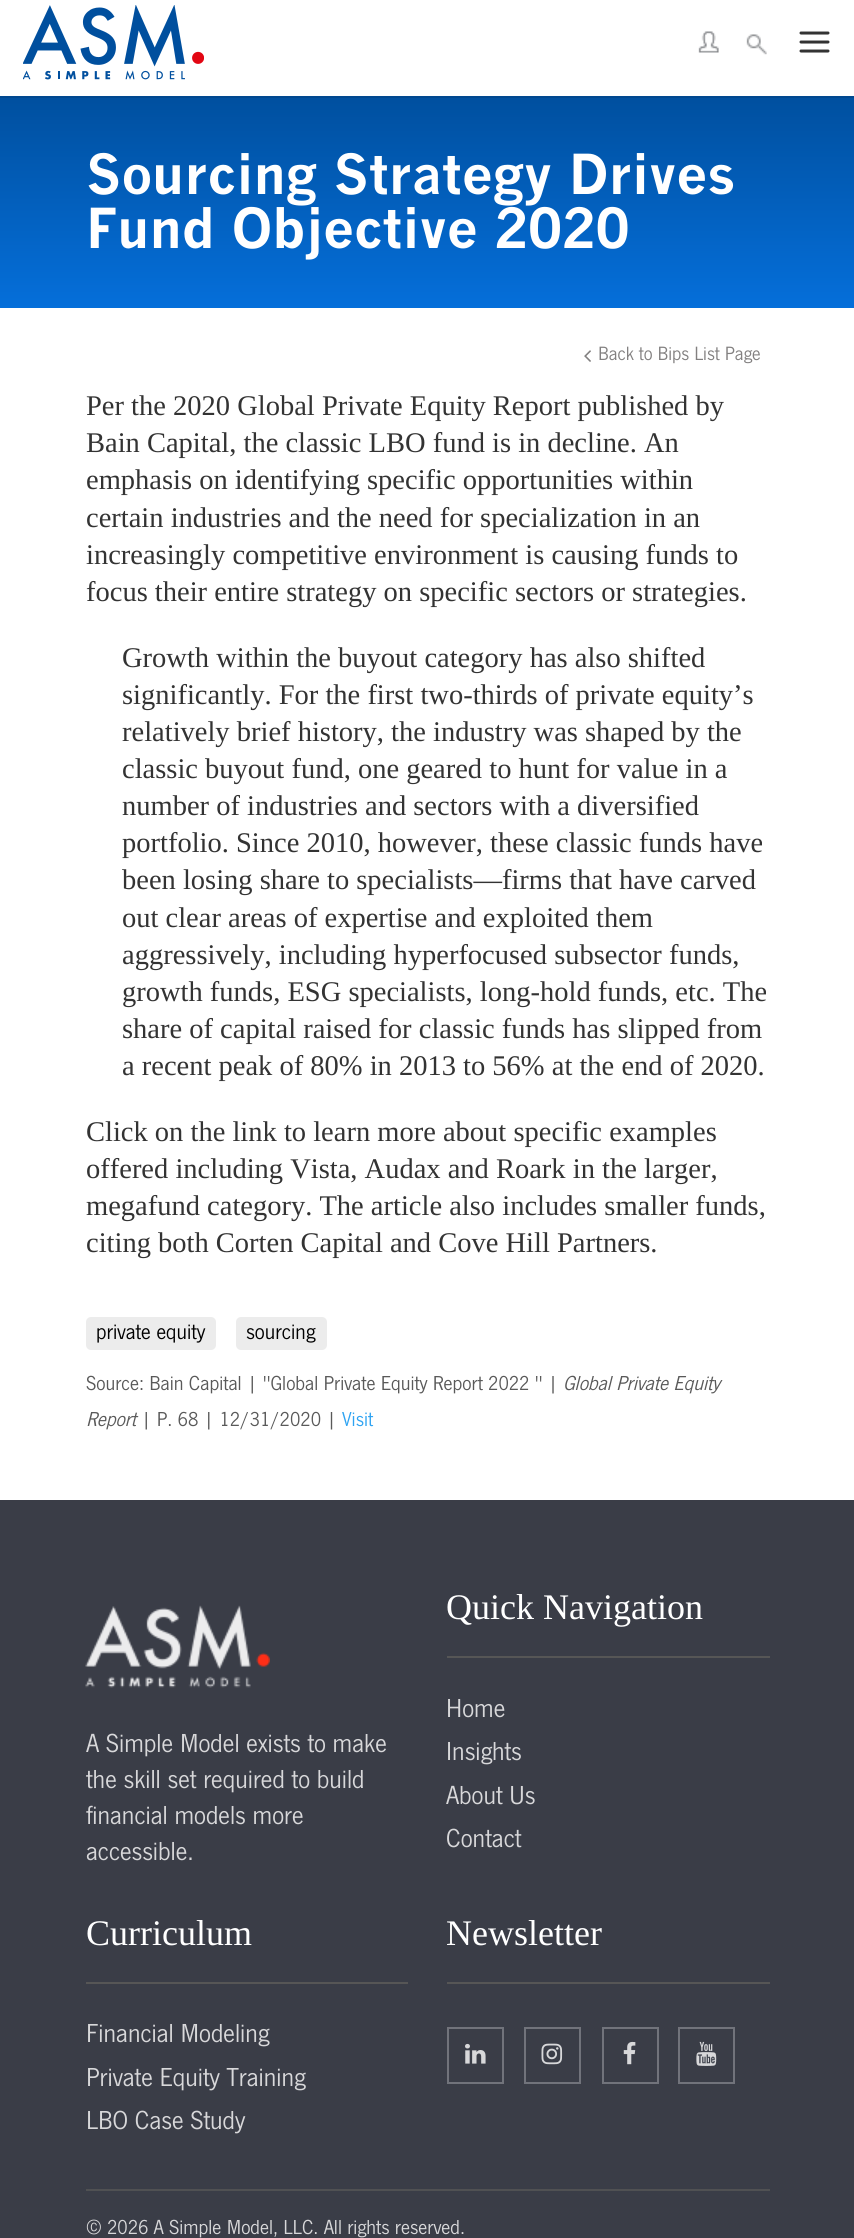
#include <cairo.h>
#include <math.h>
#include <stddef.h>

static cairo_t *c;
static void C(unsigned color){cairo_set_source_rgb(c, (color >> 16) / 255.0, (color >> 8 & 255) / 255.0, (color & 255) / 255.0);}
static void F(const char *family, double size, int italic, int bold){cairo_select_font_face(c, family, italic ? CAIRO_FONT_SLANT_ITALIC : CAIRO_FONT_SLANT_NORMAL,bold ? CAIRO_FONT_WEIGHT_BOLD : CAIRO_FONT_WEIGHT_NORMAL);cairo_set_font_size(c, size);}
static void T(double x, double y, const char *s){cairo_move_to(c, x, y);cairo_show_text(c, s);}
static void R(double x, double y, double w, double h){cairo_rectangle(c, x, y, w, h);cairo_fill(c);}
static void Q(double x, double y, double w, double h, double r){cairo_new_sub_path(c);cairo_arc(c, x + w - r, y + h - r, r, 0, M_PI / 2);cairo_arc(c, x + r, y + h - r, r, M_PI / 2, M_PI);cairo_arc(c, x + r, y + r, r, M_PI, 1.5 * M_PI);cairo_arc(c, x + w - r, y + r, r, 1.5 * M_PI, 2 * M_PI);cairo_close_path(c);}
static void I(const char *path, double x, double y, double w, double h){cairo_surface_t *image = cairo_image_surface_create_from_png(path);cairo_save(c);cairo_set_source_surface(c, image, x, y);cairo_rectangle(c, x, y, w, h);cairo_fill(c);cairo_restore(c);cairo_surface_destroy(image);}
int main(void) {
cairo_surface_t *surface = cairo_image_surface_create(CAIRO_FORMAT_RGB24, 854, 2238);
c = cairo_create(surface);
cairo_font_options_t *options = cairo_font_options_create();
cairo_font_options_set_hint_metrics(options, CAIRO_HINT_METRICS_OFF);
cairo_font_options_set_hint_style(options, CAIRO_HINT_STYLE_NONE);
cairo_set_font_options(c, options);
cairo_set_miter_limit(c, 4);
cairo_pattern_t *gradient;
C(0xffffff);
cairo_paint(c);
C(0x00488f);
R(0,96,854,2);
I("1.png",23,5,181,75);
I("2.png",698,31,21,22);
I("3.png",746,34,21,21);
I("4.png",799,31,31,22);
gradient = cairo_pattern_create_linear(428,94,428,308);
cairo_pattern_add_color_stop_rgba(gradient,0,0,0.31,0.62,1);
cairo_pattern_add_color_stop_rgba(gradient,1,0.02,0.435,0.855,1);
cairo_set_source(c,gradient);
cairo_pattern_destroy(gradient);
R(0,98,854,210);
F("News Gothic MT",54,0,1);
C(0xffffff);
T(86,194,"Sourcing Strategy Drives");
T(86,248,"Fund Objective 2020");
I("5.png",584,350,7,12);
F("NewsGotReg",20,0,0);
C(0x828080);
T(598,360,"Back to Bips List Page");
F("Liberation Serif",28.5,0,0);
C(0x333333);
T(86,415,"Per the 2020 Global Private Equity Report published by");
T(86,452,"Bain Capital, the classic LBO fund is in decline. An");
T(86,489,"emphasis on identifying specific opportunities within");
T(86,527,"certain industries and the need for specialization in an");
T(86,564,"increasingly competitive environment is causing funds to");
T(86,601,"focus their entire strategy on specific sectors or strategies.");
T(122,667,"Growth within the buyout category has also shifted");
T(122,704,"significantly. For the first two-thirds of private equity’s");
T(122,741,"relatively brief history, the industry was shaped by the");
T(122,778,"classic buyout fund, one geared to hunt for value in a");
T(122,815,"number of industries and sectors with a diversified");
T(122,852,"portfolio. Since 2010, however, these classic funds have");
T(122,889,"been losing share to specialists—firms that have carved");
T(122,927,"out clear areas of expertise and exploited them");
T(122,964,"aggressively, including hyperfocused subsector funds,");
T(122,1001,"growth funds, ESG specialists, long-hold funds, etc. The");
T(122,1038,"share of capital raised for classic funds has slipped from");
T(122,1075,"a recent peak of 80% in 2013 to 56% at the end of 2020.");
T(86,1141,"Click on the link to learn more about specific examples");
T(86,1178,"offered including Vista, Audax and Roark in the larger,");
T(86,1215,"megafund category. The article also includes smaller funds,");
T(86,1252,"citing both Corten Capital and Cove Hill Partners.");
C(0xececec);
Q(86,1317,130,33,5);
cairo_fill(c);
F("NewsGotReg",22.5,0,0);
C(0x000000);
T(96,1339,"private equity");
C(0xececec);
Q(236,1317,91,33,5);
cairo_fill(c);
C(0x000000);
T(246,1339,"sourcing");
F("NewsGotReg",21,0,0);
C(0x595959);
T(86,1390,"Source: Bain Capital | \"Global Private Equity Report 2022 \" |");
F("NewsGotReg",21,1,0);
T(563,1390,"Global Private Equity");
T(86,1426,"Report");
F("NewsGotReg",21,0,0);
T(141,1426,"| P. 68 | 12/31/2020 |");
C(0x2ea3f2);
T(342,1426,"Visit");
C(0x3a3d47);
R(0,1500,854,738);
I("6.png",85,1605,185,83);
F("NewsGotReg",27,0,0);
C(0xd8d8da);
T(86,1752,"A Simple Model exists to make");
T(86,1788,"the skill set required to build");
T(86,1824,"financial models more");
T(86,1860,"accessible.");
C(0x565656);
R(447,1656,323,2);
F("Liberation Serif",36,0,0);
C(0xffffff);
T(446,1619,"Quick Navigation");
F("NewsGotReg",27,0,0);
C(0xd8d8da);
T(446,1717,"Home");
T(446,1760,"Insights");
T(446,1804,"About Us");
T(446,1847,"Contact");
C(0x565656);
R(86,1982,322,2);
F("Liberation Serif",36,0,0);
C(0xffffff);
T(86,1945,"Curriculum");
F("NewsGotReg",27,0,0);
C(0xd8d8da);
T(86,2042,"Financial Modeling");
T(86,2086,"Private Equity Training");
T(86,2129,"LBO Case Study");
C(0x565656);
R(447,1982,323,2);
F("Liberation Serif",36,0,0);
C(0xffffff);
T(446,1945,"Newsletter");
cairo_rectangle(c,448,2028,55,55);
C(0x71737b);
cairo_stroke(c);
I("7.png",465,2043,21,21);
cairo_rectangle(c,525,2028,55,55);
cairo_stroke(c);
I("8.png",541,2043,22,22);
cairo_rectangle(c,603,2028,55,55);
cairo_stroke(c);
I("9.png",623,2041,13,24);
cairo_rectangle(c,679,2028,55,55);
cairo_stroke(c);
I("10.png",696,2041,21,25);
C(0x505153);
R(86,2189,684,2);
F("NewsGotReg",21,0,0);
C(0xd8d8da);
T(86,2234,"© 2026 A Simple Model, LLC. All rights reserved.");
cairo_surface_write_to_png(surface, "o.png");
cairo_font_options_destroy(options);
cairo_destroy(c);
cairo_surface_destroy(surface);
return 0;
}
